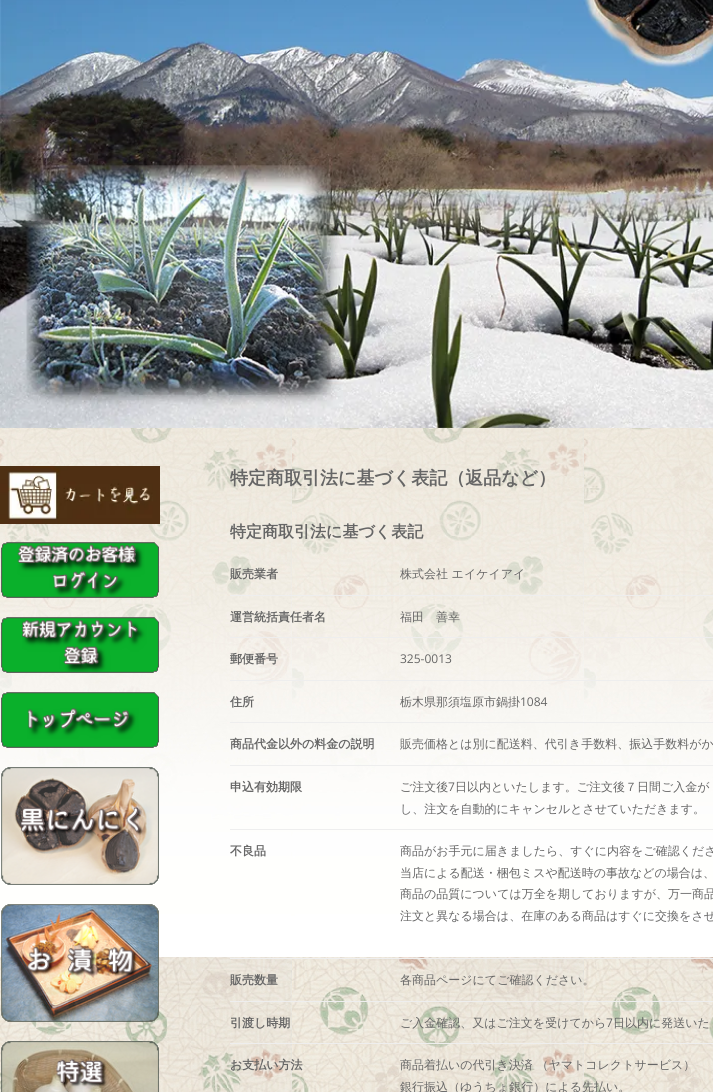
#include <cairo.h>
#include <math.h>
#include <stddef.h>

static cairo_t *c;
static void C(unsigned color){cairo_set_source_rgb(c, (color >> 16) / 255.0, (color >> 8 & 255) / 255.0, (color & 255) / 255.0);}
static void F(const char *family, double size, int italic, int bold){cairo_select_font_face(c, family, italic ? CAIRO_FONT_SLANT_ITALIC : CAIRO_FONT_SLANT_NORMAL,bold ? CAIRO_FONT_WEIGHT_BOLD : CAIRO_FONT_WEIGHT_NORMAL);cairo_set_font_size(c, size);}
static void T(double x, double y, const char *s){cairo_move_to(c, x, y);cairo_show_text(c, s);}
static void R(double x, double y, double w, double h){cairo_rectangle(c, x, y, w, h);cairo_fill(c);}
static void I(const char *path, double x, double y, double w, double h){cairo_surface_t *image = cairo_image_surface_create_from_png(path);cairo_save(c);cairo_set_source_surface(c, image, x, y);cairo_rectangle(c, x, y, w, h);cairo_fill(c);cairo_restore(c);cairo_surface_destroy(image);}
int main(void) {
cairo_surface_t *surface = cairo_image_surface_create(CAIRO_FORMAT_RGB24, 713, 1092);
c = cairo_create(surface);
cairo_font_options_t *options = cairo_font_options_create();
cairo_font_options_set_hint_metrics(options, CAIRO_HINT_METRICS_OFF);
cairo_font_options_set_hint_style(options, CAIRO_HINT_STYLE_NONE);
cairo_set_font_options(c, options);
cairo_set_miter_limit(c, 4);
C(0xffffff);
cairo_paint(c);
I("1.png",0,428,713,664);
I("2.png",0,0,530,428);
I("3.png",530,0,183,428);
I("4.png",0,466,160,58);
I("5.png",1,542,158,56);
I("6.png",1,617,158,56);
I("7.png",1,692,158,56);
I("8.png",1,767,158,118);
I("9.png",1,904,158,118);
I("10.png",1,1041,158,51);
F("WenQuanYi Zen Hei",18,0,1);
C(0x666666);
T(230,484,"特定商取引法に基づく表記（返品など）");
F("WenQuanYi Zen Hei",16,0,1);
T(230,537,"特定商取引法に基づく表記");
C(0xeeeeee);
R(230,595,483,1);
F("WenQuanYi Zen Hei",12,0,1);
C(0x666666);
T(230,578,"販売業者");
F("WenQuanYi Zen Hei Medium",12,0,0);
T(400,578,"株式会社 エイケイアイ");
C(0xeeeeee);
R(230,637,483,1);
F("WenQuanYi Zen Hei",12,0,1);
C(0x666666);
T(230,621,"運営統括責任者名");
F("WenQuanYi Zen Hei Medium",12,0,0);
T(400,621,"福田　善幸");
C(0xeeeeee);
R(230,680,483,1);
F("WenQuanYi Zen Hei",12,0,1);
C(0x666666);
T(230,663,"郵便番号");
F("Open Sans",12,0,0);
T(400,663,"325-0013");
C(0xeeeeee);
R(230,722,483,1);
F("WenQuanYi Zen Hei",12,0,1);
C(0x666666);
T(230,706,"住所");
F("WenQuanYi Zen Hei Medium",12,0,0);
T(400,706,"栃木県那須塩原市鍋掛");
F("Open Sans",12,0,0);
T(520,706,"1084");
C(0xeeeeee);
R(230,765,483,1);
F("WenQuanYi Zen Hei",12,0,1);
C(0x666666);
T(230,748,"商品代金以外の料金の説明");
F("WenQuanYi Zen Hei Medium",12,0,0);
T(400,748,"販売価格とは別に配送料、代引き手数料、振込手数料がか");
C(0xeeeeee);
R(230,829,483,1);
F("WenQuanYi Zen Hei",12,0,1);
C(0x666666);
T(230,791,"申込有効期限");
F("WenQuanYi Zen Hei Medium",12,0,0);
T(400,791,"ご注文後");
F("Open Sans",12,0,0);
T(448,791,"7");
F("WenQuanYi Zen Hei Medium",12,0,0);
T(455,791,"日以内といたします。ご注文後７日間ご入金が");
T(400,813,"し、注文を自動的にキャンセルとさせていただきます。");
C(0xeeeeee);
R(230,958,483,1);
F("WenQuanYi Zen Hei",12,0,1);
C(0x666666);
T(230,855,"不良品");
F("WenQuanYi Zen Hei Medium",12,0,0);
T(400,855,"商品がお手元に届きましたら、すぐに内容をご確認くださ");
T(400,877,"当店による配送・梱包ミスや配送時の事故などの場合は、");
T(400,898,"商品の品質については万全を期しておりますが、万一商品");
T(400,920,"注文と異なる場合は、在庫のある商品はすぐに交換をさせ");
C(0xeeeeee);
R(230,1001,483,1);
F("WenQuanYi Zen Hei",12,0,1);
C(0x666666);
T(230,984,"販売数量");
F("WenQuanYi Zen Hei Medium",12,0,0);
T(400,984,"各商品ページにてご確認ください。");
C(0xeeeeee);
R(230,1043,483,1);
F("WenQuanYi Zen Hei",12,0,1);
C(0x666666);
T(230,1027,"引渡し時期");
F("WenQuanYi Zen Hei Medium",12,0,0);
T(400,1027,"ご入金確認、又はご注文を受けてから");
F("Open Sans",12,0,0);
T(606,1027,"7");
F("WenQuanYi Zen Hei Medium",12,0,0);
T(613,1027,"日以内に発送いた");
F("WenQuanYi Zen Hei",12,0,1);
T(230,1069,"お支払い方法");
F("WenQuanYi Zen Hei Medium",12,0,0);
T(400,1069,"商品着払いの代引き決済 （ヤマトコレクトサービス）");
T(400,1091,"銀行振込（ゆうちょ銀行）による先払い。");
cairo_surface_write_to_png(surface, "o.png");
cairo_font_options_destroy(options);
cairo_destroy(c);
cairo_surface_destroy(surface);
return 0;
}
